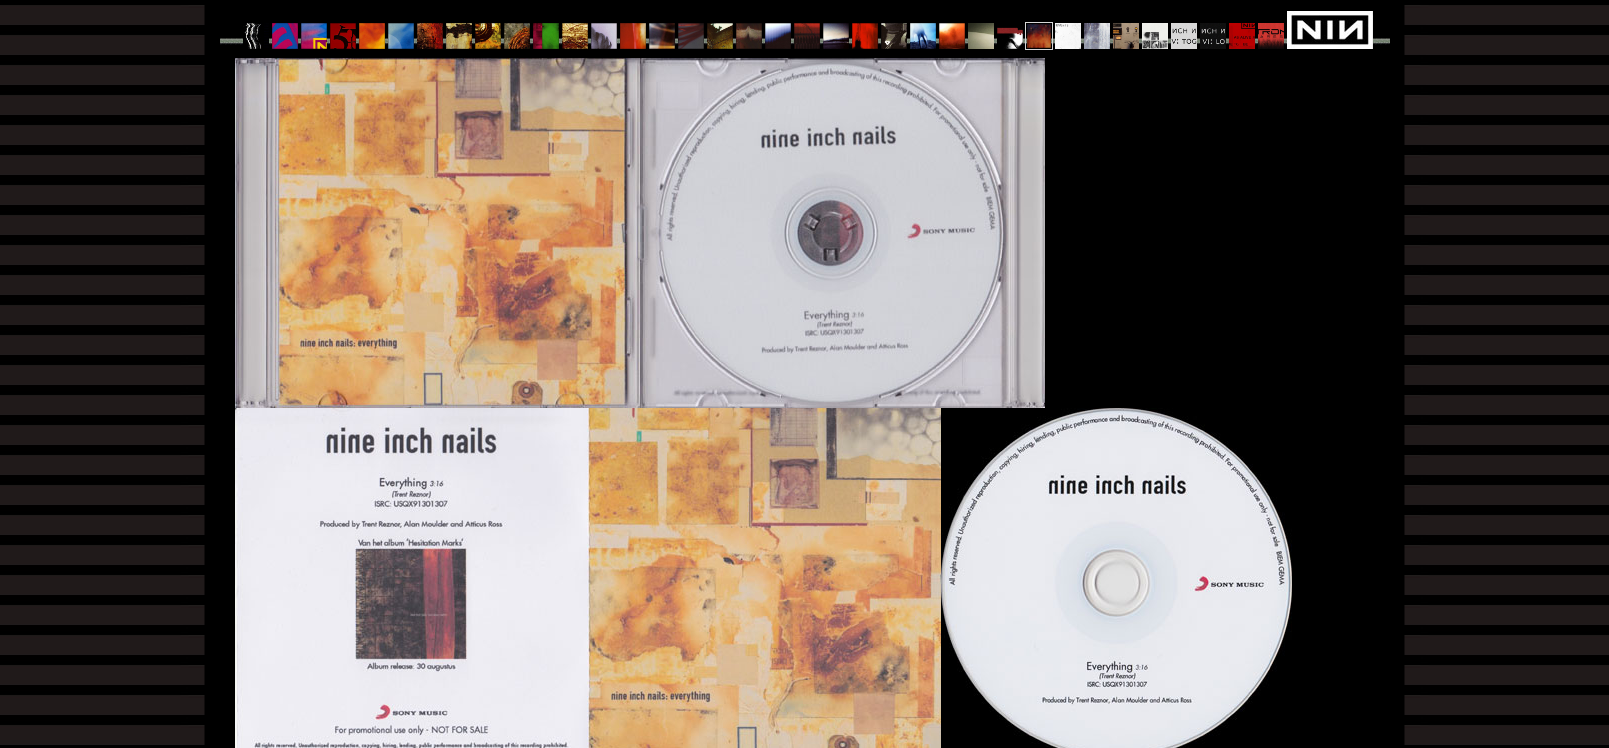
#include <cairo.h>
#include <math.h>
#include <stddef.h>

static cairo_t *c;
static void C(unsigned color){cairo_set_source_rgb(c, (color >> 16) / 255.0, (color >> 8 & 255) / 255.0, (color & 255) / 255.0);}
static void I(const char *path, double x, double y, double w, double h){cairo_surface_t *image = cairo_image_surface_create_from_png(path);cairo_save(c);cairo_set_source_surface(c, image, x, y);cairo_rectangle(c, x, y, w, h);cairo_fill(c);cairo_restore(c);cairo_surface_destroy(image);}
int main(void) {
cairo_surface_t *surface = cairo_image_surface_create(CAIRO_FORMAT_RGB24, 1609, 748);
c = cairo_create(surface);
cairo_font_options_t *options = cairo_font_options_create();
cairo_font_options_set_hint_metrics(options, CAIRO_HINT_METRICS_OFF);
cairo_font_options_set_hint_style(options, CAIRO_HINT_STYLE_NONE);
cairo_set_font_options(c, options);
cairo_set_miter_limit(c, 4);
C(0x000000);
cairo_paint(c);
I("1.png",0,5,1609,740);
I("2.png",220,38,1170,7);
I("3.png",243,23,26,26);
I("4.png",272,23,26,26);
I("5.png",301,23,26,26);
I("6.png",330,23,26,26);
I("7.png",359,23,26,26);
I("8.png",388,23,26,26);
I("9.png",417,23,26,26);
I("10.png",446,23,26,26);
I("11.png",475,23,26,26);
I("12.png",504,23,26,26);
I("13.png",533,23,26,26);
I("14.png",562,23,26,26);
I("15.png",591,23,26,26);
I("16.png",620,23,26,26);
I("17.png",649,23,26,26);
I("18.png",678,23,26,26);
I("19.png",707,23,26,26);
I("20.png",736,23,26,26);
I("21.png",765,23,26,26);
I("22.png",794,23,26,26);
I("23.png",823,23,26,26);
I("24.png",852,23,26,26);
I("25.png",881,23,26,26);
I("26.png",910,23,26,26);
I("27.png",939,23,26,26);
I("28.png",968,23,26,26);
cairo_rectangle(c,1025.5,22.5,27,27);
C(0xd6d6d6);
cairo_set_line_width(c,1);
cairo_stroke(c);
I("29.png",1055,23,26,26);
I("30.png",1084,23,26,26);
I("31.png",1113,23,26,26);
I("32.png",1142,23,26,26);
I("33.png",1171,23,26,26);
I("34.png",1200,23,26,26);
I("35.png",1229,23,26,26);
I("36.png",1258,23,26,26);
I("37.png",1287,11,86,38);
I("38.png",997,27,26,22);
I("39.png",1027,24,24,24);
I("40.png",235,58,405,350);
I("41.png",640,58,405,350);
I("42.png",235,408,706,340);
I("43.png",941,408,351,340);
cairo_surface_write_to_png(surface, "o.png");
cairo_font_options_destroy(options);
cairo_destroy(c);
cairo_surface_destroy(surface);
return 0;
}
